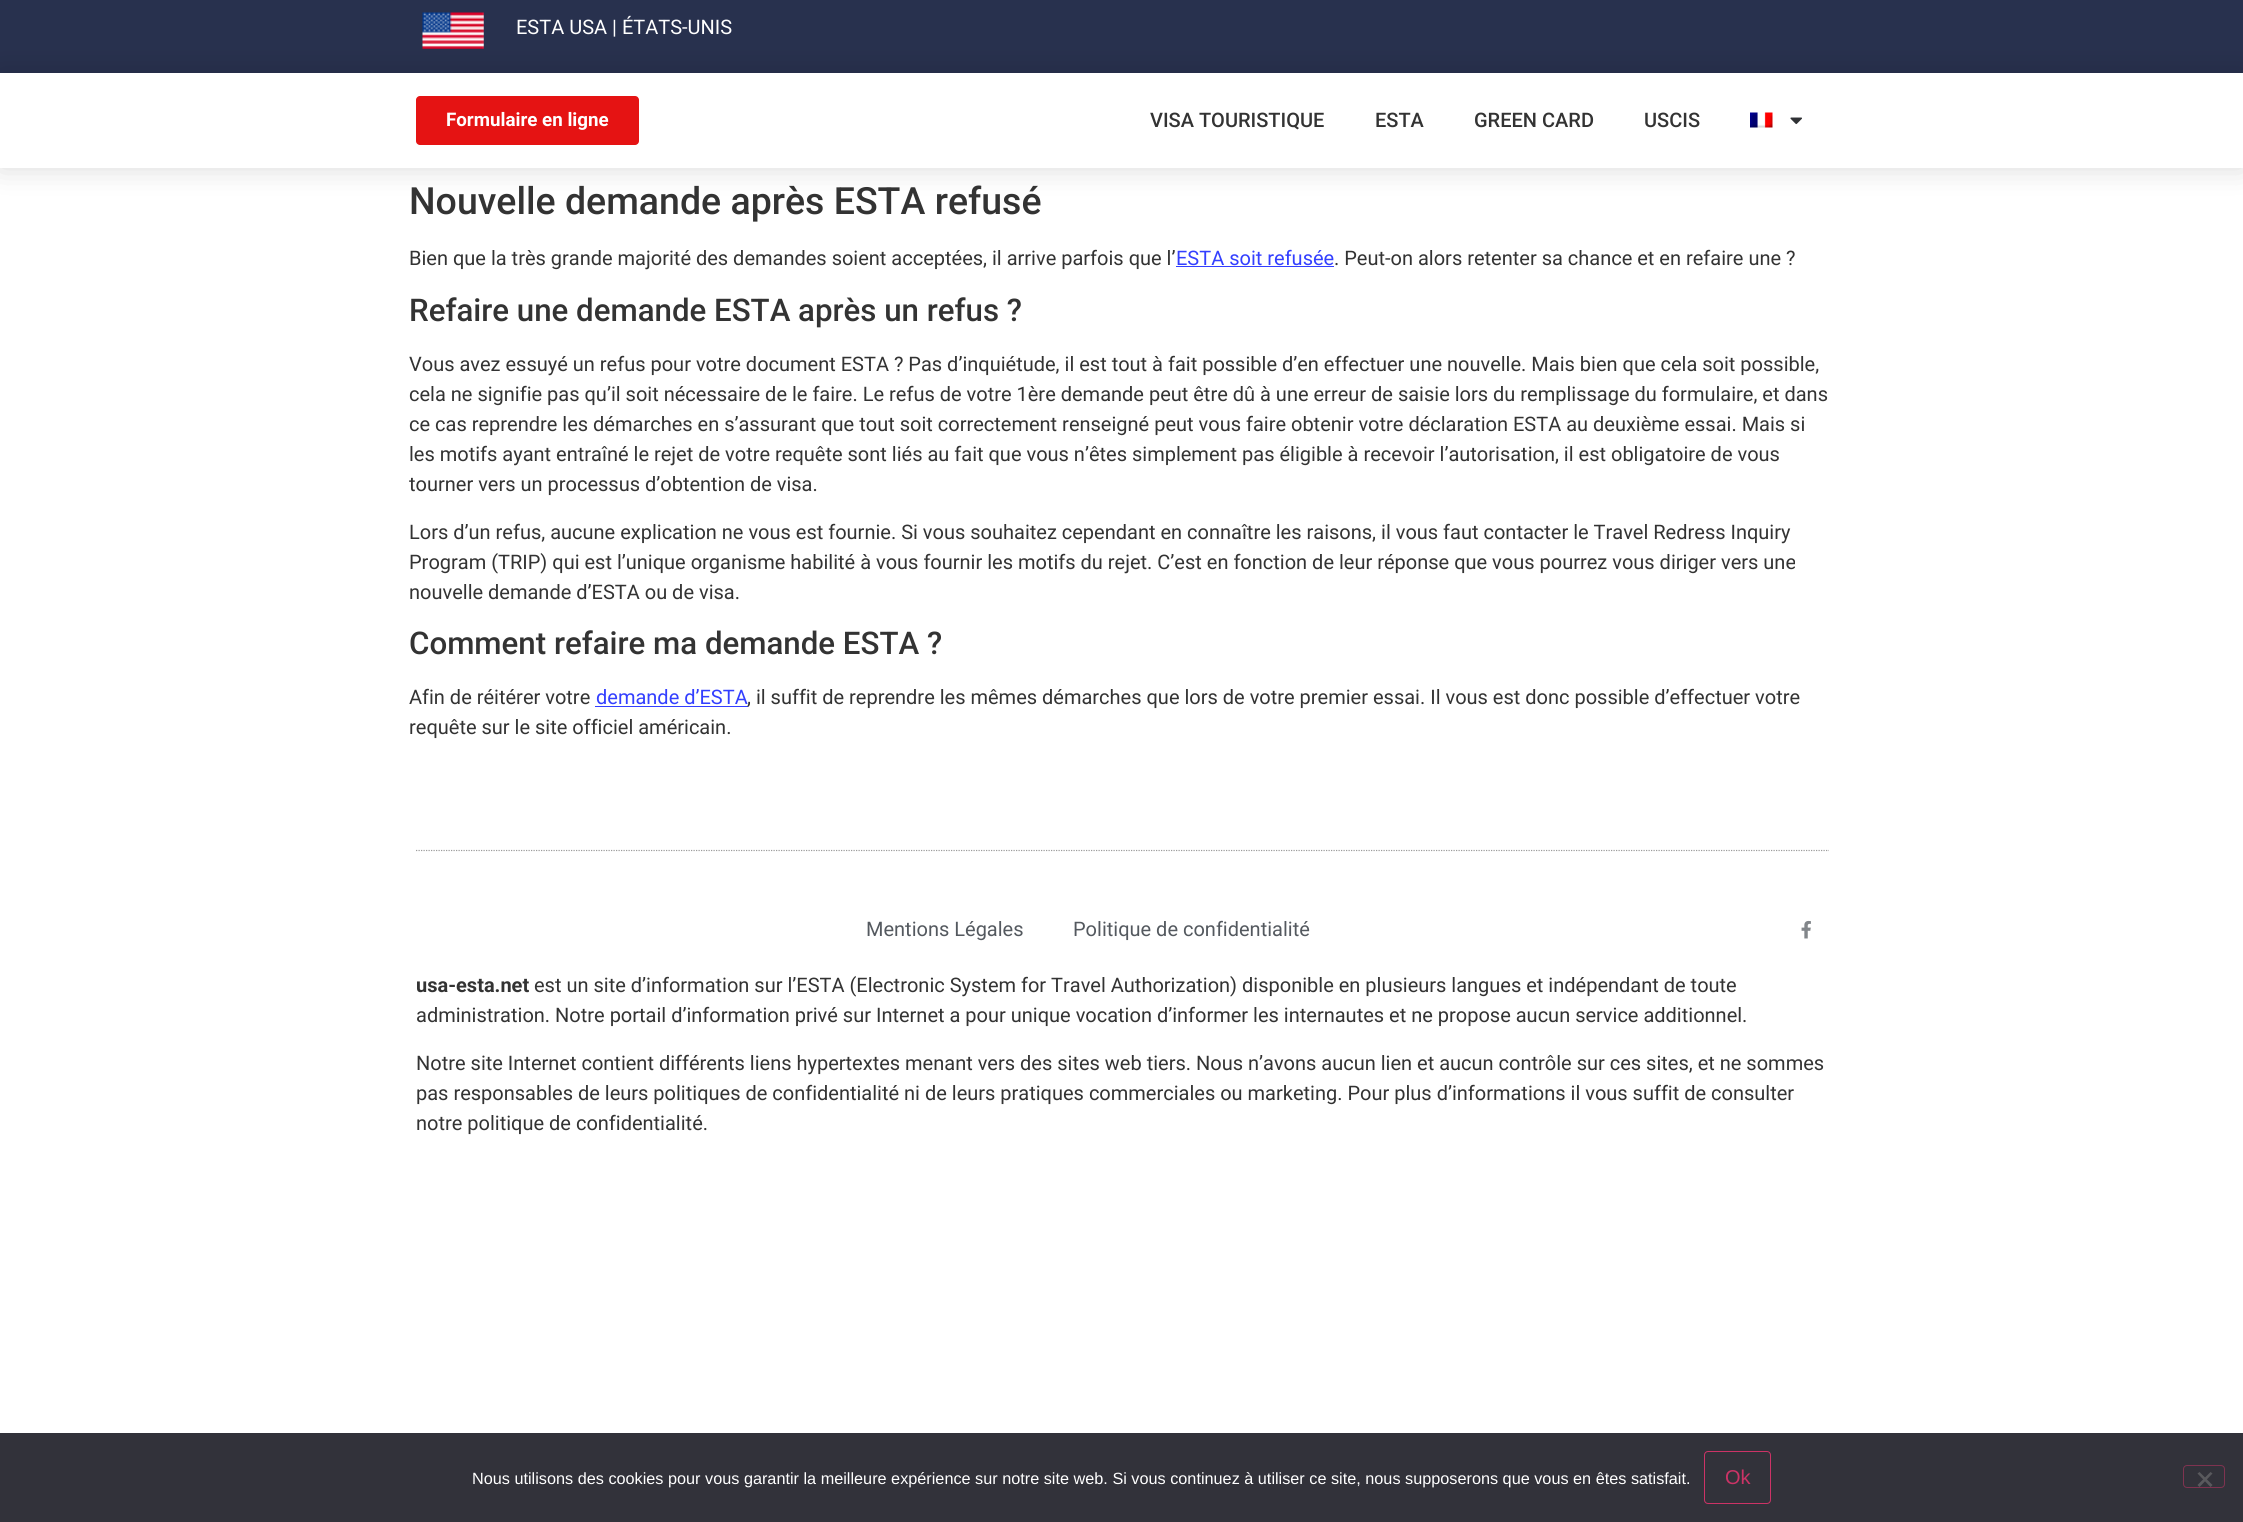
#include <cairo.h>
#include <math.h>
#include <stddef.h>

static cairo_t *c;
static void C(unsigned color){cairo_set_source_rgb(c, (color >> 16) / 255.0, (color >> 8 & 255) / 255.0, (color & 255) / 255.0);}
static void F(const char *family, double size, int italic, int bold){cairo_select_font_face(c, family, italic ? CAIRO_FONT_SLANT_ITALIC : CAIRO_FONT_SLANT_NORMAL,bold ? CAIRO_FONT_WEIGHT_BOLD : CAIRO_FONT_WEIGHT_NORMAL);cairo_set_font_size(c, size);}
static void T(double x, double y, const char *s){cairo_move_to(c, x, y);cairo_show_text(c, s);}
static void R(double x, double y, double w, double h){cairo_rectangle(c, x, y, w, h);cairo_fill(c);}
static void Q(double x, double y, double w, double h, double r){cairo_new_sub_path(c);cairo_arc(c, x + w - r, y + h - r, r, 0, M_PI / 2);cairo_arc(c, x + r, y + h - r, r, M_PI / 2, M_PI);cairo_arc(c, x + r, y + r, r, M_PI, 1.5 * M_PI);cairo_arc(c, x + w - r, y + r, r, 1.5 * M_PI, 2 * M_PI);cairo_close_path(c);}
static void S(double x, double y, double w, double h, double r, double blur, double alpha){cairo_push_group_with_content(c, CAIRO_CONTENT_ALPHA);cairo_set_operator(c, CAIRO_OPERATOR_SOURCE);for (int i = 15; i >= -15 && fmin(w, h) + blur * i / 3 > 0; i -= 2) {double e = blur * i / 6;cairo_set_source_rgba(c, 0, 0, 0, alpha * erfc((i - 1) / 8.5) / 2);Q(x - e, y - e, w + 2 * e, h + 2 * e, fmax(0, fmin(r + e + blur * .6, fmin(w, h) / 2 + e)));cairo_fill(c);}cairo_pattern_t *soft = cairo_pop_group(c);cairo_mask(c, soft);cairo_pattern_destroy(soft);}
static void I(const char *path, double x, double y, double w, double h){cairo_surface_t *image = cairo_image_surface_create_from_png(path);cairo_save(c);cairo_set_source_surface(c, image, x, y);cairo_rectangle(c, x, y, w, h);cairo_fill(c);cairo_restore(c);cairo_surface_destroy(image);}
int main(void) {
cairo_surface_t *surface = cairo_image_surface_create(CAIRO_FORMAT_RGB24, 2243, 1522);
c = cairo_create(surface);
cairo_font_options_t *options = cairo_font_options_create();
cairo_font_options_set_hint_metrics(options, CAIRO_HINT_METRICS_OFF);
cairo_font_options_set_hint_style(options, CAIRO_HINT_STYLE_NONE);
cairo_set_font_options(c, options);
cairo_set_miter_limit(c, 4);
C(0xffffff);
cairo_paint(c);
C(0x28314e);
R(0,0,2243,73);
I("1.png",422,12,62,37);
F("Roboto",20,0,0);
C(0xffffff);
T(516,34,"ESTA USA | ÉTATS-UNIS");
C(0x000000);
S(0,73,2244,95,0,15,.15);
C(0xffffff);
R(0,73,2243,95);
C(0xe51313);
Q(416,96,223,49,4);
cairo_fill(c);
F("Roboto",18.75,0,1);
C(0xffffff);
T(446,126,"Formulaire en ligne");
F("Roboto Medium",20,0,0);
C(0x333333);
T(1150,127,"VISA TOURISTIQUE");
T(1375,127,"ESTA");
T(1474,127,"GREEN CARD");
T(1644,127,"USCIS");
I("2.png",1750,112,23,16);
I("3.png",1790,117,12,8);
F("Roboto Medium",37.5,0,0);
T(409,214,"Nouvelle demande après ESTA refusé");
F("Roboto",20,0,0);
T(409,265,"Bien que la très grande majorité des demandes soient acceptées, il arrive parfois que l’");
C(0x333fff);
T(1176,265,"ESTA soit refusée");
R(1176,266,158,1);
C(0x333333);
T(1334,265,". Peut-on alors retenter sa chance et en refaire une ?");
F("Roboto Medium",31.25,0,0);
T(409,321,"Refaire une demande ESTA après un refus ?");
F("Roboto",20,0,0);
T(409,371,"Vous avez essuyé un refus pour votre document ESTA ? Pas d’inquiétude, il est tout à fait possible d’en effectuer une nouvelle. Mais bien que cela soit possible,");
T(409,401,"cela ne signifie pas qu’il soit nécessaire de le faire. Le refus de votre 1ère demande peut être dû à une erreur de saisie lors du remplissage du formulaire, et dans");
T(409,431,"ce cas reprendre les démarches en s’assurant que tout soit correctement renseigné peut vous faire obtenir votre déclaration ESTA au deuxième essai. Mais si");
T(409,461,"les motifs ayant entraîné le rejet de votre requête sont liés au fait que vous n’êtes simplement pas éligible à recevoir l’autorisation, il est obligatoire de vous");
T(409,491,"tourner vers un processus d’obtention de visa.");
T(409,539,"Lors d’un refus, aucune explication ne vous est fournie. Si vous souhaitez cependant en connaître les raisons, il vous faut contacter le Travel Redress Inquiry");
T(409,569,"Program (TRIP) qui est l’unique organisme habilité à vous fournir les motifs du rejet. C’est en fonction de leur réponse que vous pourrez vous diriger vers une");
T(409,599,"nouvelle demande d’ESTA ou de visa.");
F("Roboto Medium",31.25,0,0);
T(409,654,"Comment refaire ma demande ESTA ?");
F("Roboto",20,0,0);
T(409,704,"Afin de réitérer votre");
C(0x333fff);
T(596,704,"demande d’ESTA");
R(595,706,153,1);
C(0x333333);
T(747,704,", il suffit de reprendre les mêmes démarches que lors de votre premier essai. Il vous est donc possible d’effectuer votre");
T(409,734,"requête sur le site officiel américain.");
cairo_new_path(c);
cairo_move_to(c,416,850.5);
cairo_line_to(c,1829,850.5);
C(0x9b9b9b);
cairo_set_line_width(c,1.2);
cairo_set_dash(c,(double[]){1.25,1.25},2,0);
cairo_stroke(c);
C(0x54595f);
T(866,936,"Mentions Légales");
T(1073,936,"Politique de confidentialité");
I("4.png",1801,920,10,19);
F("Roboto",20,0,1);
C(0x333333);
T(416,992,"usa-esta.net");
F("Roboto",20,0,0);
T(534,992,"est un site d’information sur l’ESTA (Electronic System for Travel Authorization) disponible en plusieurs langues et indépendant de toute");
T(416,1022,"administration. Notre portail d’information privé sur Internet a pour unique vocation d’informer les internautes et ne propose aucun service additionnel.");
T(416,1070,"Notre site Internet contient différents liens hypertextes menant vers des sites web tiers. Nous n’avons aucun lien et aucun contrôle sur ces sites, et ne sommes");
T(416,1100,"pas responsables de leurs politiques de confidentialité ni de leurs pratiques commerciales ou marketing. Pour plus d’informations il vous suffit de consulter");
T(416,1130,"notre politique de confidentialité.");
C(0x32323a);
R(0,1433,2243,89);
F("Liberation Sans",16.25,0,0);
C(0xffffff);
T(472,1484,"Nous utilisons des cookies pour vous garantir la meilleure expérience sur notre site web. Si vous continuez à utiliser ce site, nous supposerons que vous en êtes satisfait.");
Q(1704.5,1451.5,66,52,3.5);
C(0xcc3366);
cairo_set_line_width(c,1);
cairo_set_dash(c,NULL,0,0);
cairo_stroke(c);
F("Liberation Sans",20,0,0);
T(1725,1484,"Ok");
Q(2183.5,1465.5,41,22,3.5);
C(0x7f3350);
cairo_stroke(c);
C(0x59595d);
cairo_new_path(c);
cairo_move_to(c,2210.5,1472);
cairo_line_to(c,2212.5,1473.5);
cairo_line_to(c,2199.5,1487);
cairo_line_to(c,2197.5,1485);
cairo_close_path(c);
cairo_fill(c);
cairo_new_path(c);
cairo_move_to(c,2197.5,1473.5);
cairo_line_to(c,2199.5,1472);
cairo_line_to(c,2212.5,1485);
cairo_line_to(c,2210.5,1487);
cairo_close_path(c);
cairo_fill(c);
cairo_surface_write_to_png(surface, "o.png");
cairo_font_options_destroy(options);
cairo_destroy(c);
cairo_surface_destroy(surface);
return 0;
}
